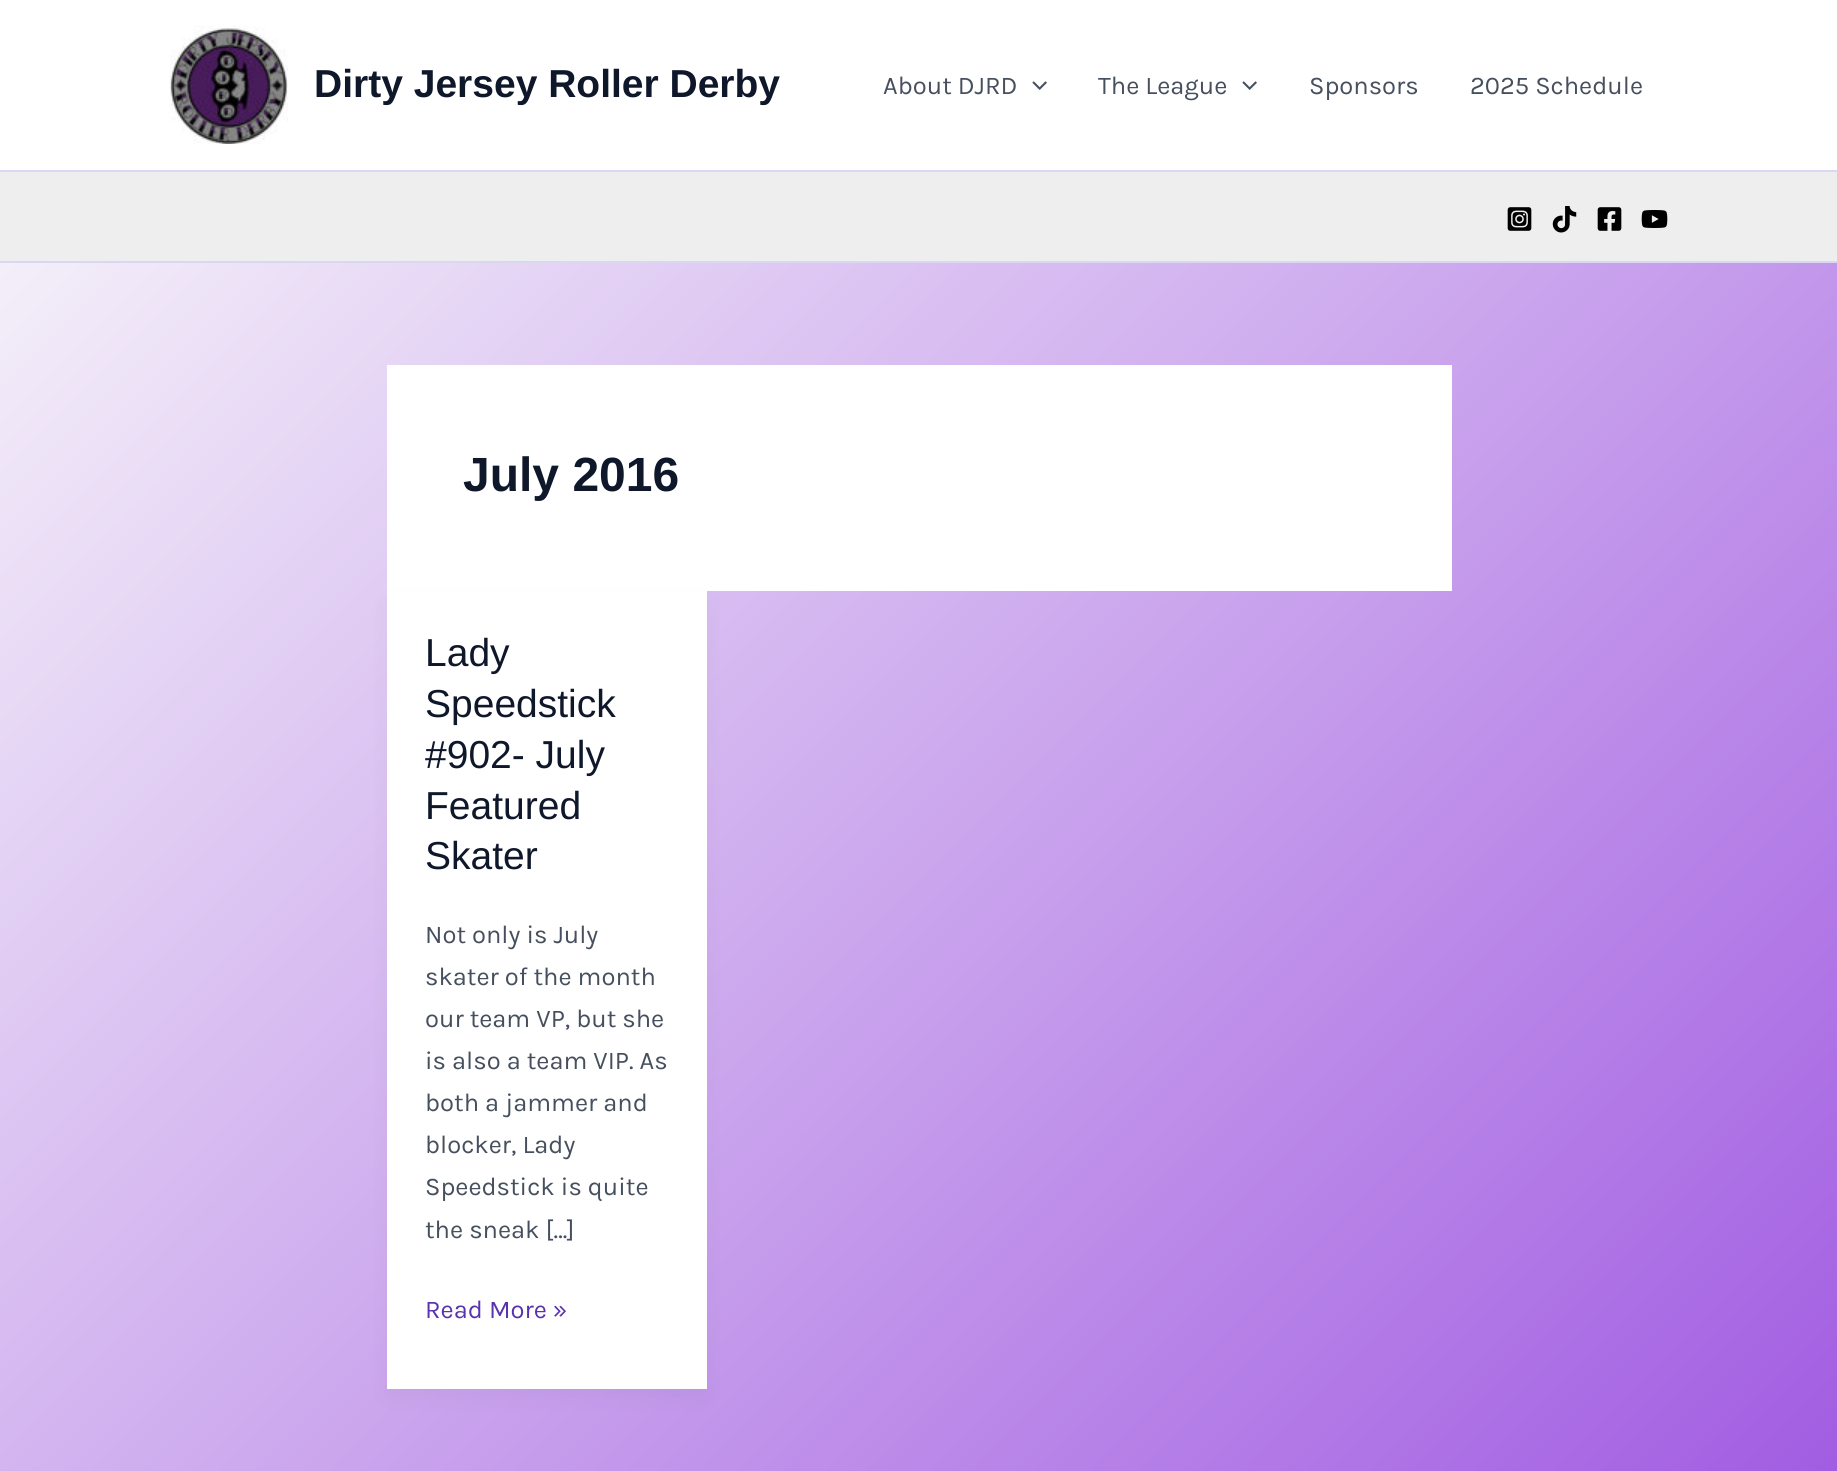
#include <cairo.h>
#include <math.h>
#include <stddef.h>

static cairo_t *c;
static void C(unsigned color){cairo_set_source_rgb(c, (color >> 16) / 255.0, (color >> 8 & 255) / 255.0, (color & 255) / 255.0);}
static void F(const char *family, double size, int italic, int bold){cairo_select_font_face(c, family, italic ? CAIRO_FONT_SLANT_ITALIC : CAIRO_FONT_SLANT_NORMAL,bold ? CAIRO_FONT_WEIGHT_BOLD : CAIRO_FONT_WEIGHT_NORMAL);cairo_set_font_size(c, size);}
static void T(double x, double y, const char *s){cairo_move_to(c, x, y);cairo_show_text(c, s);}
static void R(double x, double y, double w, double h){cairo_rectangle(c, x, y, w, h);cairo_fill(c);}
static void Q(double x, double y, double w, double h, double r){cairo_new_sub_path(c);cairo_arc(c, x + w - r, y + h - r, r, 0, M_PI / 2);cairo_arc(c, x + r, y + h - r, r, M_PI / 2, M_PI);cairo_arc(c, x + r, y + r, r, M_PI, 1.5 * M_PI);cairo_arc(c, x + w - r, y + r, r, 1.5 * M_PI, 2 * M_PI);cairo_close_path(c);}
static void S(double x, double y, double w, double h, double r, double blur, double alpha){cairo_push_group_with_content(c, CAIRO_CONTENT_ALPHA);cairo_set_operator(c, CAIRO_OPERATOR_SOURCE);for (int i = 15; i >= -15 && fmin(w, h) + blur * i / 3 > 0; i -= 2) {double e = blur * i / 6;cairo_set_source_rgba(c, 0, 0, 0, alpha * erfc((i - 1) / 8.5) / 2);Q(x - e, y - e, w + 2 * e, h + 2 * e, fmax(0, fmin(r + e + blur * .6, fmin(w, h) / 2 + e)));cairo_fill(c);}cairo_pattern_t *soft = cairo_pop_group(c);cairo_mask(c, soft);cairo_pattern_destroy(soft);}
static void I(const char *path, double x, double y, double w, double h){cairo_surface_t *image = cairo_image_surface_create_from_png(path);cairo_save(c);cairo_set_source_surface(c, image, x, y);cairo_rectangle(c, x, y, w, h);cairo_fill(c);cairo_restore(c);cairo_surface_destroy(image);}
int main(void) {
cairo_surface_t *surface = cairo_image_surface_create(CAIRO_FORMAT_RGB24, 1837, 1471);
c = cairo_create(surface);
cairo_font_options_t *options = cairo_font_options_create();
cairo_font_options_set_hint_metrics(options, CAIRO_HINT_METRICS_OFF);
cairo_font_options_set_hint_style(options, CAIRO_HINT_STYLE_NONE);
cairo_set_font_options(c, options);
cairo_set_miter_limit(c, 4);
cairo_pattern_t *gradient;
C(0xffffff);
cairo_paint(c);
gradient = cairo_pattern_create_linear(28,-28,1809,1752);
cairo_pattern_add_color_stop_rgba(gradient,0,0.984,0.984,0.984,1);
cairo_pattern_add_color_stop_rgba(gradient,1,0.608,0.318,0.878,1);
cairo_set_source(c,gradient);
cairo_pattern_destroy(gradient);
R(0,263,1837,1208);
C(0xd8d8f5);
R(0,170,1837,2);
I("1.png",169,25,119,119);
F("Liberation Sans",39,0,1);
C(0x0f172a);
T(314,97,"Dirty Jersey Roller Derby");
F("Karla",25.5,0,0);
C(0x454f5e);
T(883,94,"About DJRD");
I("2.png",1032,81,15,9);
T(1098,94,"The League");
I("2.png",1242,81,15,9);
T(1309,94,"Sponsors");
T(1470,94,"2025 Schedule");
C(0xeeeeee);
R(0,172,1837,89);
C(0xd8d8f5);
R(0,261,1837,2);
I("3.png",1507,207,25,24);
I("4.png",1552,206,25,27);
I("5.png",1597,207,25,24);
I("6.png",1641,210,27,18);
C(0xffffff);
R(387,365,1065,226);
F("Liberation Sans",48,0,1);
C(0x0f172a);
T(463,491,"July 2016");
C(0x101828);
S(390,603,314,792,0,11,.05);
C(0xffffff);
R(387,591,320,798);
F("Liberation Sans",39,0,0);
C(0x0f172a);
T(425,666,"Lady");
T(425,717,"Speedstick");
T(425,768,"#902- July");
T(425,819,"Featured");
T(425,869,"Skater");
F("Karla",25.5,0,0);
C(0x454f5e);
T(425,943,"Not only is July");
T(425,985,"skater of the month");
T(425,1027,"our team VP, but she");
T(425,1069,"is also a team VIP. As");
T(425,1111,"both a jammer and");
T(425,1153,"blocker, Lady");
T(425,1195,"Speedstick is quite");
T(425,1238,"the sneak […]");
C(0x5833ad);
T(425,1318,"Read More »");
cairo_surface_write_to_png(surface, "o.png");
cairo_font_options_destroy(options);
cairo_destroy(c);
cairo_surface_destroy(surface);
return 0;
}
